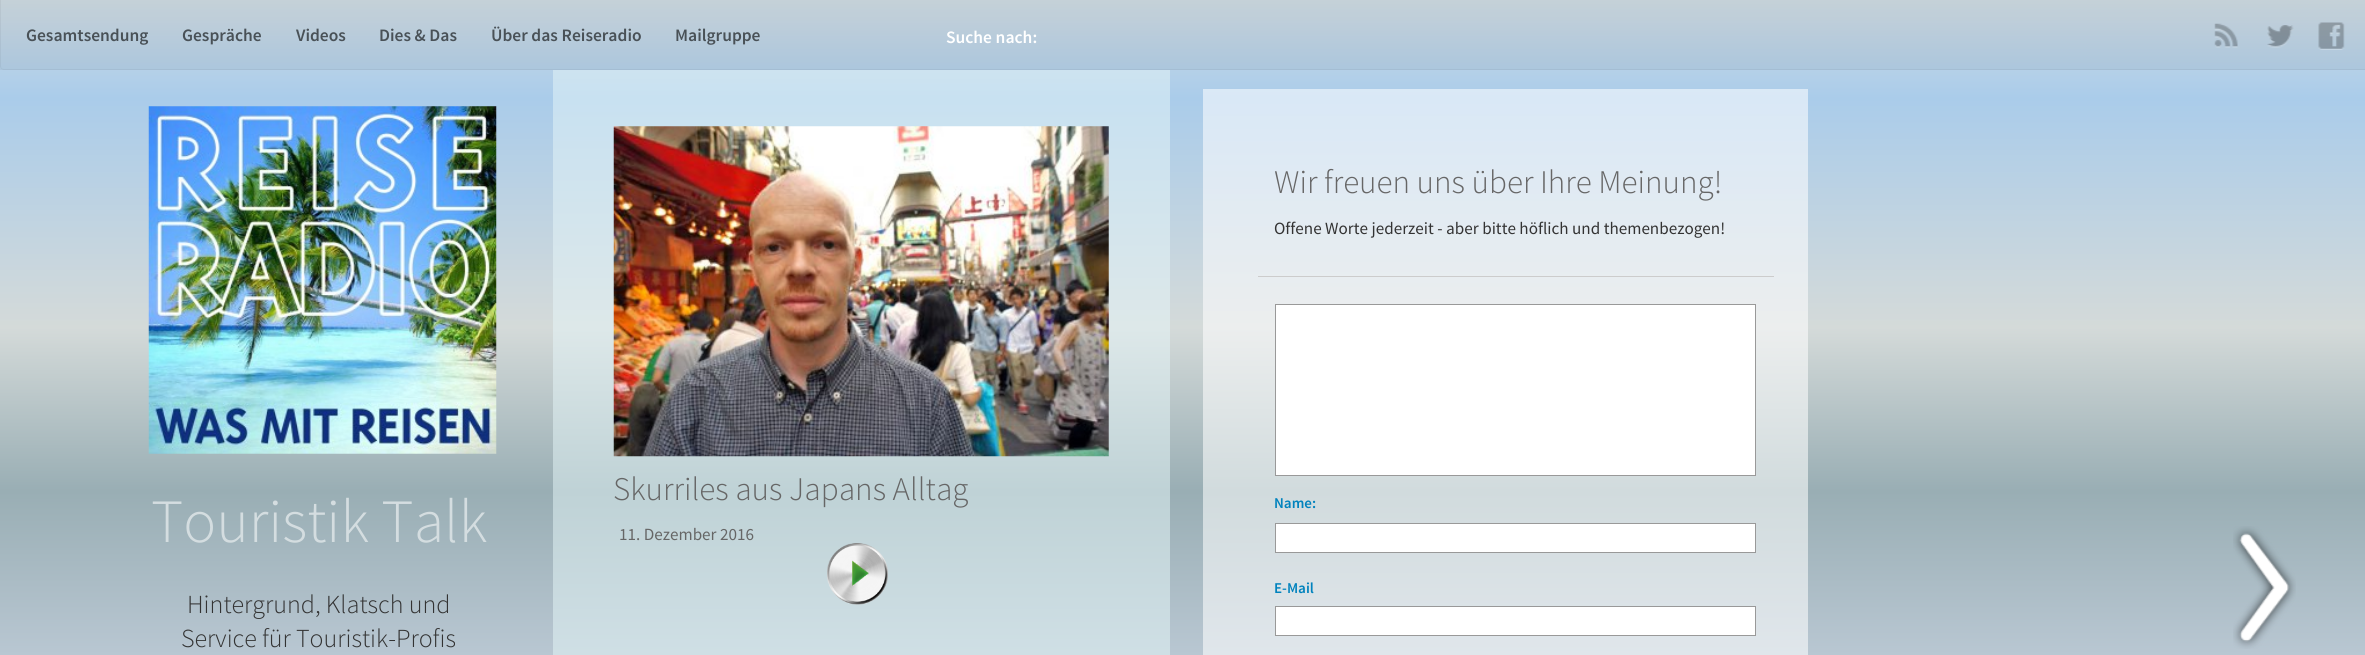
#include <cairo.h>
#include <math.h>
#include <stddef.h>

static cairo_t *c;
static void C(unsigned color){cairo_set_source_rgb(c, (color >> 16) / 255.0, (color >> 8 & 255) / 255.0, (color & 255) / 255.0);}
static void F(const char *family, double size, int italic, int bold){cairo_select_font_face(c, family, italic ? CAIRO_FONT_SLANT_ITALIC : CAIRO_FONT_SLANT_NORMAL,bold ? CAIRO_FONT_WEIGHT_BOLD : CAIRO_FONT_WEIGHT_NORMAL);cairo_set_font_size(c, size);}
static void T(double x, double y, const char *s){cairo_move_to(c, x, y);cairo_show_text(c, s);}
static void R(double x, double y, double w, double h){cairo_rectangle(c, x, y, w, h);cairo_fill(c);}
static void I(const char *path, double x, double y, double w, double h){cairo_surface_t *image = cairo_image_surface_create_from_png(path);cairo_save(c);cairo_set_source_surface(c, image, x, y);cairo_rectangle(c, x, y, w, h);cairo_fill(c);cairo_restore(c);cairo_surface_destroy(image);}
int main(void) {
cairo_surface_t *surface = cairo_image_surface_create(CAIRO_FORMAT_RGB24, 2365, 655);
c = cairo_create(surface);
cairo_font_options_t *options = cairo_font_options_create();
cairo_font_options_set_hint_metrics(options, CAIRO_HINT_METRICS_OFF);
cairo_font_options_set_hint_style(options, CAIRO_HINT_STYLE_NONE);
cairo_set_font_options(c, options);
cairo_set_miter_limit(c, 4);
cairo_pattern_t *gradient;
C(0xffffff);
cairo_paint(c);
gradient = cairo_pattern_create_linear(1183,0,1183,655);
cairo_pattern_add_color_stop_rgba(gradient,0,0.812,0.859,0.89,1);
cairo_pattern_add_color_stop_rgba(gradient,.15,0.667,0.8,0.918,1);
cairo_pattern_add_color_stop_rgba(gradient,.5,0.831,0.855,0.851,1);
cairo_pattern_add_color_stop_rgba(gradient,.75,0.6,0.682,0.706,1);
cairo_pattern_add_color_stop_rgba(gradient,1,0.725,0.78,0.824,1);
cairo_set_source(c,gradient);
cairo_pattern_destroy(gradient);
R(0,0,2365,655);
gradient = cairo_pattern_create_linear(1183,0,1183,655);
cairo_pattern_add_color_stop_rgba(gradient,0,0.914,0.937,0.949,1);
cairo_pattern_add_color_stop_rgba(gradient,.15,0.851,0.91,0.965,1);
cairo_pattern_add_color_stop_rgba(gradient,.5,0.925,0.933,0.933,1);
cairo_pattern_add_color_stop_rgba(gradient,.75,0.82,0.859,0.867,1);
cairo_pattern_add_color_stop_rgba(gradient,1,0.878,0.902,0.922,1);
cairo_set_source(c,gradient);
cairo_pattern_destroy(gradient);
R(1203,89,605,566);
gradient = cairo_pattern_create_linear(1183,0,1183,655);
cairo_pattern_add_color_stop_rgba(gradient,0,0.855,0.914,0.933,1);
cairo_pattern_add_color_stop_rgba(gradient,.15,0.784,0.882,0.945,1);
cairo_pattern_add_color_stop_rgba(gradient,.5,0.867,0.91,0.914,1);
cairo_pattern_add_color_stop_rgba(gradient,.75,0.749,0.824,0.839,1);
cairo_pattern_add_color_stop_rgba(gradient,1,0.812,0.875,0.898,1);
cairo_set_source(c,gradient);
cairo_pattern_destroy(gradient);
R(553,70,617,585);
cairo_set_source_rgba(c,0,0,0,0.05);
R(0,0,2365,70);
cairo_set_fill_rule(c,CAIRO_FILL_RULE_EVEN_ODD);
cairo_new_path(c);
cairo_move_to(c,0,0);
cairo_line_to(c,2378,0);
cairo_line_to(c,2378,66);
cairo_curve_to(c,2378,68,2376,70,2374,70);
cairo_line_to(c,4,70);
cairo_curve_to(c,2,70,0,68,0,66);
cairo_close_path(c);
cairo_move_to(c,1,0);
cairo_line_to(c,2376,0);
cairo_line_to(c,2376,66);
cairo_curve_to(c,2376,68,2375,69,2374,69);
cairo_line_to(c,4,69);
cairo_curve_to(c,2,69,1,68,1,66);
cairo_close_path(c);
cairo_fill(c);
F("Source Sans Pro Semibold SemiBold",17.5,0,0);
C(0x495157);
T(26,41,"Gesamtsendung");
T(182,41,"Gespräche");
T(296,41,"Videos");
T(379,41,"Dies & Das");
T(491,41,"Über das Reiseradio");
T(675,41,"Mailgruppe");
C(0xffffff);
T(946,43,"Suche nach:");
I("1.png",2214,23,24,25);
I("2.png",2267,25,27,23);
I("3.png",2318,22,27,28);
I("4.png",148,106,349,348);
F("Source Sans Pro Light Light",61.5,0,0);
C(0xd4dde0);
T(151,542,"Touristik Talk");
F("Source Sans Pro Light Light",26,0,0);
C(0x333333);
T(187,613,"Hintergrund, Klatsch und");
T(181,647,"Service für Touristik-Profis");
I("5.png",613,126,496,331);
F("Source Sans Pro Light Light",33,0,0);
C(0x666666);
T(613,500,"Skurriles aus Japans Alltag");
F("Source Sans Pro",17.1,0,0);
T(619,540,"11. Dezember 2016");
I("6.png",827,543,61,62);
C(0xcccccc);
R(1258,276,516,1);
F("Source Sans Pro Light Light",33,0,0);
C(0x666666);
T(1274,193,"Wir freuen uns über Ihre Meinung!");
F("Source Sans Pro",17.1,0,0);
C(0x333333);
T(1274,234,"Offene Worte jederzeit - aber bitte höflich und themenbezogen!");
C(0xffffff);
cairo_rectangle(c,1275.5,304.5,480,171);
cairo_fill_preserve(c);
C(0x999999);
cairo_set_line_width(c,1);
cairo_stroke(c);
F("Source Sans Pro Semibold SemiBold",15,0,0);
C(0x0082bd);
T(1274,508,"Name:");
C(0xffffff);
cairo_rectangle(c,1275.5,523.5,480,29);
cairo_fill_preserve(c);
C(0x999999);
cairo_stroke(c);
C(0x0082bd);
T(1274,593,"E-Mail");
C(0xffffff);
cairo_rectangle(c,1275.5,606.5,480,29);
cairo_fill_preserve(c);
C(0x999999);
cairo_stroke(c);
I("7.png",2233,526,63,123);
cairo_surface_write_to_png(surface, "o.png");
cairo_font_options_destroy(options);
cairo_destroy(c);
cairo_surface_destroy(surface);
return 0;
}
